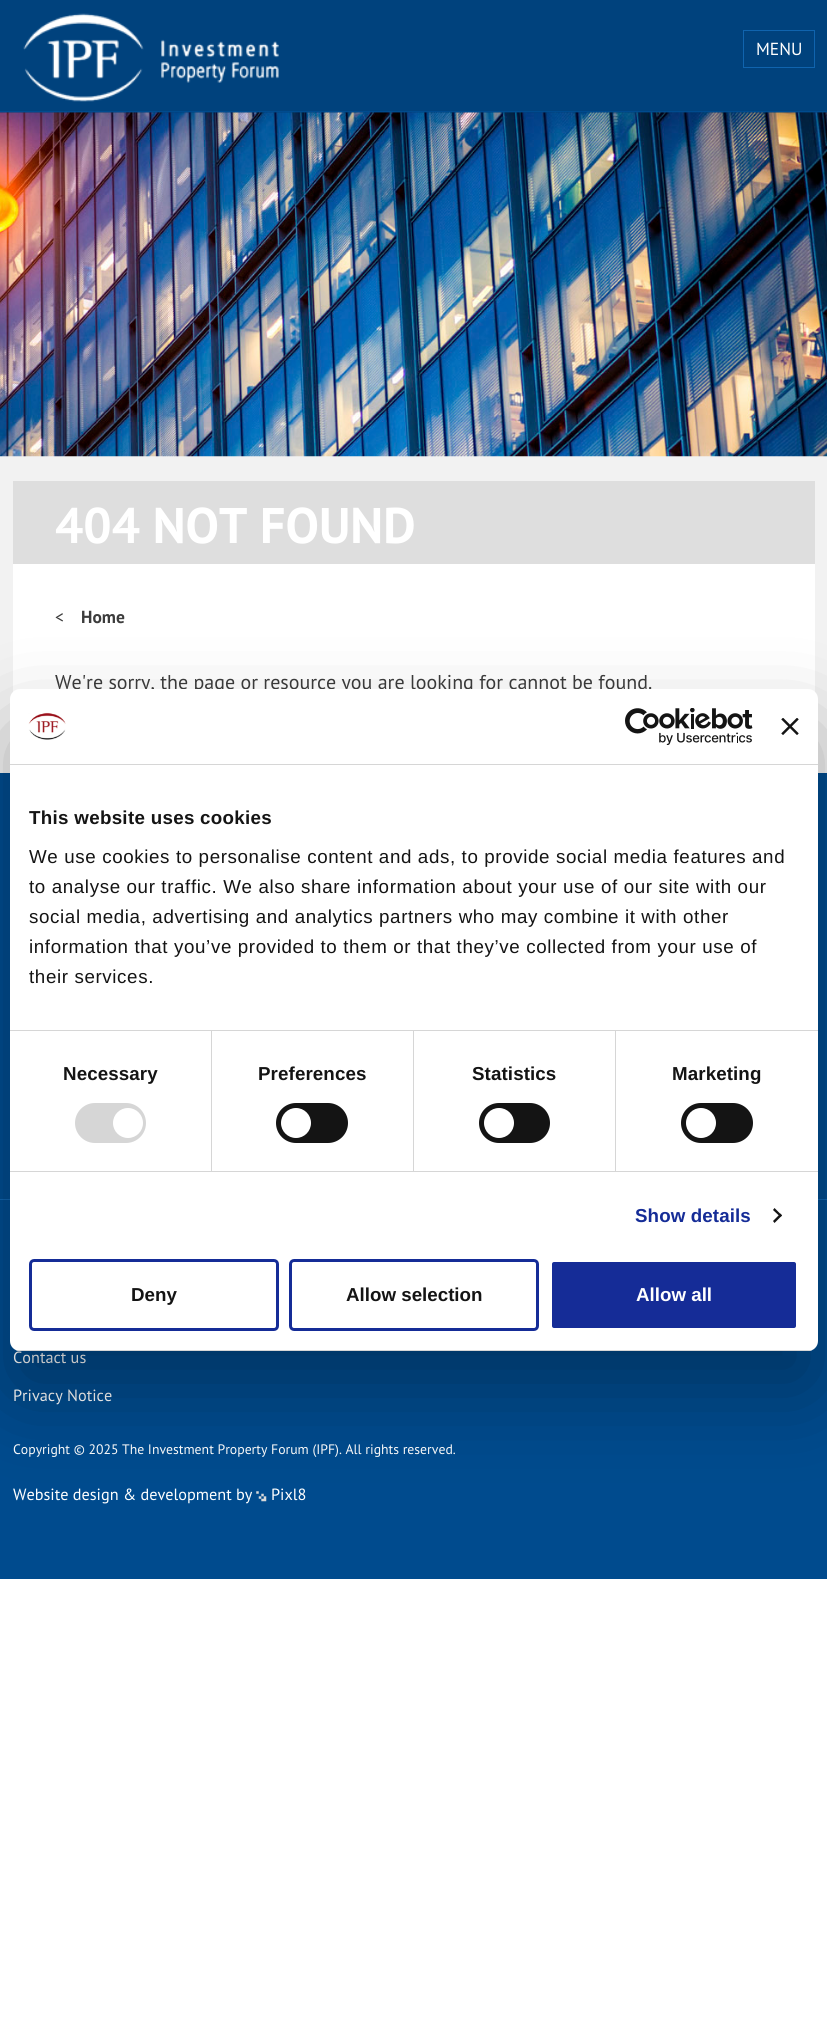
#include <cairo.h>
#include <math.h>
#include <stddef.h>

static cairo_t *c;
static void C(unsigned color){cairo_set_source_rgb(c, (color >> 16) / 255.0, (color >> 8 & 255) / 255.0, (color & 255) / 255.0);}
static void F(const char *family, double size, int italic, int bold){cairo_select_font_face(c, family, italic ? CAIRO_FONT_SLANT_ITALIC : CAIRO_FONT_SLANT_NORMAL,bold ? CAIRO_FONT_WEIGHT_BOLD : CAIRO_FONT_WEIGHT_NORMAL);cairo_set_font_size(c, size);}
static void T(double x, double y, const char *s){cairo_move_to(c, x, y);cairo_show_text(c, s);}
static void L(double x, double y, const char *s, double letter, double word){cairo_move_to(c, x, y);while (*s) {char ch[5] = {0};int n = 0;do ch[n++] = *s++; while ((*s & 0xC0) == 0x80);cairo_show_text(c, ch);cairo_rel_move_to(c, letter + word * (*ch == ' '), 0);}}
static void R(double x, double y, double w, double h){cairo_rectangle(c, x, y, w, h);cairo_fill(c);}
static void Q(double x, double y, double w, double h, double r){cairo_new_sub_path(c);cairo_arc(c, x + w - r, y + h - r, r, 0, M_PI / 2);cairo_arc(c, x + r, y + h - r, r, M_PI / 2, M_PI);cairo_arc(c, x + r, y + r, r, M_PI, 1.5 * M_PI);cairo_arc(c, x + w - r, y + r, r, 1.5 * M_PI, 2 * M_PI);cairo_close_path(c);}
static void S(double x, double y, double w, double h, double r, double blur, double alpha){cairo_push_group_with_content(c, CAIRO_CONTENT_ALPHA);cairo_set_operator(c, CAIRO_OPERATOR_SOURCE);for (int i = 15; i >= -15 && fmin(w, h) + blur * i / 3 > 0; i -= 2) {double e = blur * i / 6;cairo_set_source_rgba(c, 0, 0, 0, alpha * erfc((i - 1) / 8.5) / 2);Q(x - e, y - e, w + 2 * e, h + 2 * e, fmax(0, fmin(r + e + blur * .6, fmin(w, h) / 2 + e)));cairo_fill(c);}cairo_pattern_t *soft = cairo_pop_group(c);cairo_mask(c, soft);cairo_pattern_destroy(soft);}
static void I(const char *path, double x, double y, double w, double h){cairo_surface_t *image = cairo_image_surface_create_from_png(path);cairo_save(c);cairo_set_source_surface(c, image, x, y);cairo_rectangle(c, x, y, w, h);cairo_fill(c);cairo_restore(c);cairo_surface_destroy(image);}
int main(void) {
cairo_surface_t *surface = cairo_image_surface_create(CAIRO_FORMAT_RGB24, 827, 2039);
c = cairo_create(surface);
cairo_font_options_t *options = cairo_font_options_create();
cairo_font_options_set_hint_metrics(options, CAIRO_HINT_METRICS_OFF);
cairo_font_options_set_hint_style(options, CAIRO_HINT_STYLE_NONE);
cairo_set_font_options(c, options);
cairo_set_miter_limit(c, 4);
C(0xffffff);
cairo_paint(c);
C(0x00427d);
R(0,0,827,113);
I("1.png",23,13,256,89);
cairo_rectangle(c,743.5,30.5,71,37);
C(0x1064ae);
cairo_set_line_width(c,1);
cairo_stroke(c);
F("PT Sans",17.5,0,0);
C(0xffffff);
T(756,55,"MENU");
C(0x004b8e);
R(0,111,827,1);
C(0xf2f2f2);
R(0,456,827,317);
I("2.png",0,112,827,345);
C(0xdedede);
R(13,481,802,83);
F("PT Sans",50,0,1);
C(0xffffff);
T(55,543,"404 NOT FOUND");
R(13,564,802,128);
F("PT Sans",17.5,0,0);
C(0x3c3c3c);
T(55,623,"<");
F("PT Sans",17.5,0,1);
T(81,623,"Home");
F("PT Sans",20,0,0);
T(55,689,"We're sorry, the page or resource you are looking for cannot be found.");
C(0x004b8e);
R(0,773,827,806);
C(0x1064ae);
R(0,1199,827,1);
F("PT Sans",16.25,0,0);
C(0xffffff);
T(13,1363,"Contact us");
T(13,1401,"Privacy Notice");
F("PT Sans",13.75,0,0);
T(13,1454,"Copyright © 2025 The Investment Property Forum (IPF). All rights reserved.");
F("PT Sans",16.25,0,0);
T(13,1500,"Website design & development by");
I("3.png",256,1491,11,11);
T(271,1500,"Pixl8");
C(0x000000);
S(10,729,808,662,10,42.5,.3);
C(0xffffff);
Q(10,689,808,662,10);
cairo_fill(c);
C(0xd6d6d6);
R(10,764,808,1);
I("4.png",28,712,38,28);
I("5.png",625,708,128,37);
I("6.png",781,718,18,17);
R(10,1030,808,1);
F("Liberation Sans",18.75,0,1);
C(0x141414);
L(29,824,"This website uses cookies",.3,0);
F("Liberation Sans",18.75,0,0);
L(29,863,"We use cookies to personalise content and ads, to provide social media features and",.62,0);
L(29,893,"to analyse our traffic. We also share information about your use of our site with our",.62,0);
L(29,923,"social media, advertising and analytics partners who may combine it with other",.62,0);
L(29,953,"information that you’ve provided to them or that they’ve collected from your use of",.62,0);
L(29,983,"their services.",.62,0);
C(0xd6d6d6);
R(10,1171,808,1);
R(211,1031,1,140);
F("Liberation Sans",18.75,0,1);
C(0x141414);
L(63,1080,"Necessary",.1,0);
C(0xd6d6d6);
Q(75,1103,71,40,20);
cairo_fill(c);
C(0xffffff);
cairo_arc(c,128,1123,15,0,2 * M_PI);
cairo_fill(c);
C(0xd6d6d6);
R(413,1031,1,140);
C(0x141414);
L(258,1080,"Preferences",.1,0);
Q(276,1103,72,40,20);
cairo_fill(c);
C(0xffffff);
cairo_arc(c,296,1123,15,0,2 * M_PI);
cairo_fill(c);
C(0xd6d6d6);
R(615,1031,1,140);
C(0x141414);
L(472,1080,"Statistics",.1,0);
Q(479,1103,71,40,20);
cairo_fill(c);
C(0xffffff);
cairo_arc(c,499,1123,15,0,2 * M_PI);
cairo_fill(c);
C(0x141414);
L(672,1080,"Marketing",.1,0);
Q(681,1103,72,40,20);
cairo_fill(c);
C(0xffffff);
cairo_arc(c,701,1123,15,0,2 * M_PI);
cairo_fill(c);
C(0x152c97);
L(635,1222,"Show details",.1,0);
C(0x141414);
cairo_new_path(c);
cairo_move_to(c,774.5,1208);
cairo_line_to(c,782,1215.5);
cairo_line_to(c,780.5,1217);
cairo_line_to(c,773,1210);
cairo_close_path(c);
cairo_fill(c);
cairo_new_path(c);
cairo_move_to(c,780.5,1213.5);
cairo_line_to(c,782,1215.5);
cairo_line_to(c,774.5,1223);
cairo_line_to(c,773,1221);
cairo_close_path(c);
cairo_fill(c);
cairo_save(c);
Q(10,689,808,662,10);
cairo_clip(c);
C(0xd6d6d6);
R(10,1350,808,1);
cairo_restore(c);
Q(30.5,1260.5,247,69,3.5);
C(0x152c97);
cairo_set_line_width(c,3);
cairo_stroke(c);
C(0x141414);
T(131,1301,"Deny");
Q(290.5,1260.5,247,69,3.5);
C(0x152c97);
cairo_stroke(c);
C(0x141414);
T(346,1301,"Allow selection");
C(0x152c97);
Q(550.5,1260.5,247,69,3.5);
cairo_fill_preserve(c);
C(0xffffff);
cairo_stroke(c);
T(636,1301,"Allow all");
cairo_surface_write_to_png(surface, "o.png");
cairo_font_options_destroy(options);
cairo_destroy(c);
cairo_surface_destroy(surface);
return 0;
}
